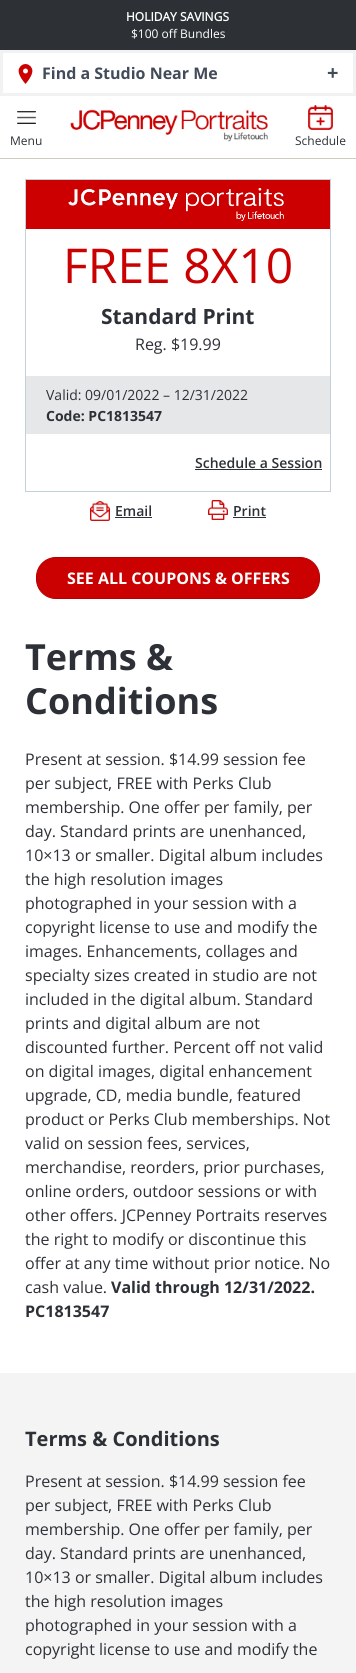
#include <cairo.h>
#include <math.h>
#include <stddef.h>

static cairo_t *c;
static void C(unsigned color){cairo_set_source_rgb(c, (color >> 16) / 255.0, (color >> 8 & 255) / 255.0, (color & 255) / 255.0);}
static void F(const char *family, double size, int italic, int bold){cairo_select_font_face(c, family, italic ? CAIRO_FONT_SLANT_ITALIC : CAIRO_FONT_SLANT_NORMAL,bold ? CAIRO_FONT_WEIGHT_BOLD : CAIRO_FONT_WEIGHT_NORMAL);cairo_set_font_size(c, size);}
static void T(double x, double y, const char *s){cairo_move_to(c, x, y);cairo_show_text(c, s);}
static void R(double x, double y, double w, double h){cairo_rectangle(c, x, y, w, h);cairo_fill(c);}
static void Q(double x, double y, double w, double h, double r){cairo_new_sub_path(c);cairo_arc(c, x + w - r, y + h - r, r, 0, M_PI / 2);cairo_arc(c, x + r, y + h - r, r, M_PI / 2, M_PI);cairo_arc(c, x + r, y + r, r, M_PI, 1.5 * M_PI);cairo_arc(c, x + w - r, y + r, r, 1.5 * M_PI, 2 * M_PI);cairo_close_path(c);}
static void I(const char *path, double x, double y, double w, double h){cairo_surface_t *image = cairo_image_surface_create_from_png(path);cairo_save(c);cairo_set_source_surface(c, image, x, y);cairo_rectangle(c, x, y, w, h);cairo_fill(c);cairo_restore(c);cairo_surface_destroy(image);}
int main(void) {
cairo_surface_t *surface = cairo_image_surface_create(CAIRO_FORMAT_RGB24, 356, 1673);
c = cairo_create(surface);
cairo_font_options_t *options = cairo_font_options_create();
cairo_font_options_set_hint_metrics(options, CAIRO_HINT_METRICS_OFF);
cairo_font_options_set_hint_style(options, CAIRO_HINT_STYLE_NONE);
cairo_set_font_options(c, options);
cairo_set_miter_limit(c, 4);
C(0xffffff);
cairo_paint(c);
C(0xd1ccbd);
R(0,158,356,1);
C(0x2d3136);
R(0,0,356,50);
F("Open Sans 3",12,0,1);
C(0xffffff);
T(126,21,"HOLIDAY SAVINGS");
F("Open Sans",12,0,0);
T(131,38,"$100 off Bundles");
cairo_rectangle(c,1.5,51.5,353,43);
C(0xf2f2f2);
cairo_set_line_width(c,3);
cairo_stroke(c);
I("1.png",18,64,15,20);
F("Open Sans",16,0,1);
C(0x424b5a);
T(42,79,"Find a Studio Near Me");
F("Open Sans",20,0,1);
T(327,80,"+");
I("2.png",17,111,19,13);
F("Open Sans",12,0,0);
C(0x2d3137);
T(10,145,"Menu");
I("3.png",70,109,198,33);
I("4.png",308,105,25,25);
T(295,145,"Schedule");
cairo_rectangle(c,25.5,179.5,305,312);
C(0xc2d1d9);
cairo_set_line_width(c,1);
cairo_stroke(c);
C(0xcc0000);
R(26,180,304,49);
I("5.png",68,188,216,33);
F("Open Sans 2",48,0,0);
C(0xcb0000);
T(63,283,"FREE 8X10");
F("Open Sans",21,0,1);
C(0x2d3137);
T(101,324,"Standard Print");
F("Open Sans 2",16,0,0);
T(135,350,"Reg. $19.99");
C(0xe6e7e8);
R(26,376,304,58);
F("Open Sans 2",14,0,0);
C(0x2d3137);
T(46,400,"Valid: 09/01/2022 – 12/31/2022");
F("Open Sans 2",14,0,1);
T(46,421,"Code: PC1813547");
F("Open Sans SemiBold",14,0,0);
T(195,468,"Schedule a Session");
R(195,469,127,1);
I("6.png",90,501,20,20);
T(115,516,"Email");
R(115,517,37,1);
I("7.png",208,500,20,20);
T(233,516,"Print");
R(233,517,33,1);
C(0xcb0000);
Q(36.5,557.5,283,41,19.5);
cairo_fill_preserve(c);
C(0xb40000);
cairo_stroke(c);
F("Open Sans",16,0,1);
C(0xffffff);
T(67,584,"SEE ALL COUPONS & OFFERS");
F("Open Sans",36,0,1);
C(0x2d3137);
T(25,670,"Terms &");
T(25,714,"Conditions");
F("Open Sans 2",16,0,0);
T(25,765,"Present at session. $14.99 session fee");
T(25,789,"per subject, FREE with Perks Club");
T(25,813,"membership. One offer per family, per");
T(25,837,"day. Standard prints are unenhanced,");
T(25,861,"10×13 or smaller. Digital album includes");
T(25,885,"the high resolution images");
T(25,909,"photographed in your session with a");
T(25,933,"copyright license to use and modify the");
T(25,957,"images. Enhancements, collages and");
T(25,981,"specialty sizes created in studio are not");
T(25,1005,"included in the digital album. Standard");
T(25,1029,"prints and digital album are not");
T(25,1053,"discounted further. Percent off not valid");
T(25,1077,"on digital images, digital enhancement");
T(25,1101,"upgrade, CD, media bundle, featured");
T(25,1125,"product or Perks Club memberships. Not");
T(25,1149,"valid on session fees, services,");
T(25,1173,"merchandise, reorders, prior purchases,");
T(25,1197,"online orders, outdoor sessions or with");
T(25,1221,"other offers. JCPenney Portraits reserves");
T(25,1245,"the right to modify or discontinue this");
T(25,1269,"offer at any time without prior notice. No");
T(25,1293,"cash value.");
F("Open Sans 2",16,0,1);
T(111,1293,"Valid through 12/31/2022.");
T(25,1317,"PC1813547");
C(0xf4f4f4);
R(0,1373,356,300);
F("Open Sans",20,0,1);
C(0x2d3137);
T(25,1446,"Terms & Conditions");
F("Open Sans 2",16,0,0);
T(25,1487,"Present at session. $14.99 session fee");
T(25,1511,"per subject, FREE with Perks Club");
T(25,1535,"membership. One offer per family, per");
T(25,1559,"day. Standard prints are unenhanced,");
T(25,1583,"10×13 or smaller. Digital album includes");
T(25,1607,"the high resolution images");
T(25,1631,"photographed in your session with a");
T(25,1655,"copyright license to use and modify the");
cairo_surface_write_to_png(surface, "o.png");
cairo_font_options_destroy(options);
cairo_destroy(c);
cairo_surface_destroy(surface);
return 0;
}
